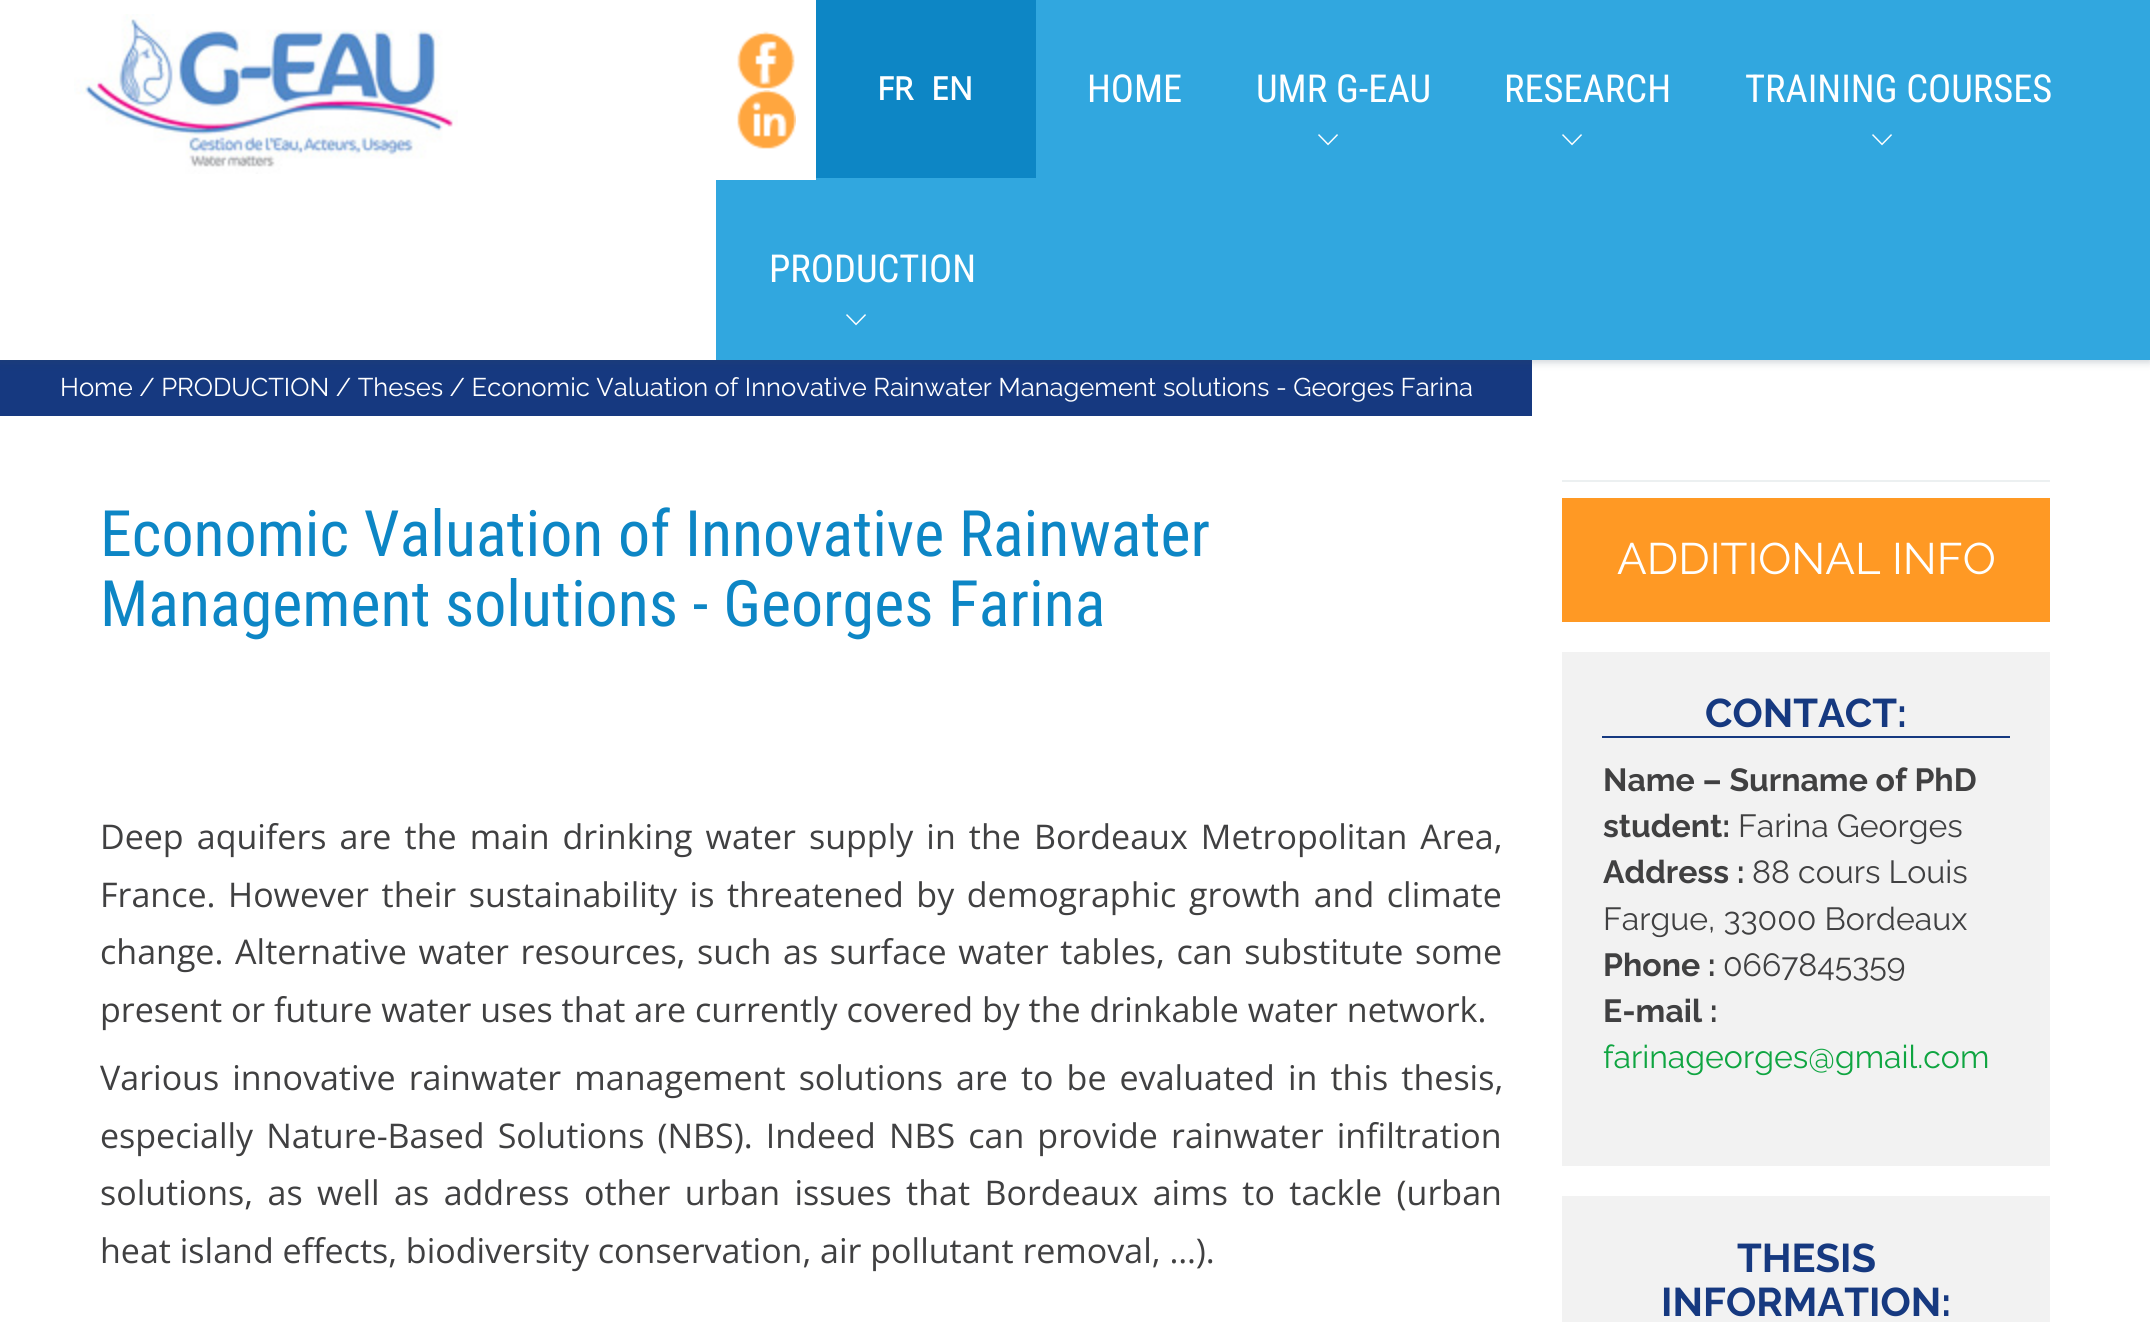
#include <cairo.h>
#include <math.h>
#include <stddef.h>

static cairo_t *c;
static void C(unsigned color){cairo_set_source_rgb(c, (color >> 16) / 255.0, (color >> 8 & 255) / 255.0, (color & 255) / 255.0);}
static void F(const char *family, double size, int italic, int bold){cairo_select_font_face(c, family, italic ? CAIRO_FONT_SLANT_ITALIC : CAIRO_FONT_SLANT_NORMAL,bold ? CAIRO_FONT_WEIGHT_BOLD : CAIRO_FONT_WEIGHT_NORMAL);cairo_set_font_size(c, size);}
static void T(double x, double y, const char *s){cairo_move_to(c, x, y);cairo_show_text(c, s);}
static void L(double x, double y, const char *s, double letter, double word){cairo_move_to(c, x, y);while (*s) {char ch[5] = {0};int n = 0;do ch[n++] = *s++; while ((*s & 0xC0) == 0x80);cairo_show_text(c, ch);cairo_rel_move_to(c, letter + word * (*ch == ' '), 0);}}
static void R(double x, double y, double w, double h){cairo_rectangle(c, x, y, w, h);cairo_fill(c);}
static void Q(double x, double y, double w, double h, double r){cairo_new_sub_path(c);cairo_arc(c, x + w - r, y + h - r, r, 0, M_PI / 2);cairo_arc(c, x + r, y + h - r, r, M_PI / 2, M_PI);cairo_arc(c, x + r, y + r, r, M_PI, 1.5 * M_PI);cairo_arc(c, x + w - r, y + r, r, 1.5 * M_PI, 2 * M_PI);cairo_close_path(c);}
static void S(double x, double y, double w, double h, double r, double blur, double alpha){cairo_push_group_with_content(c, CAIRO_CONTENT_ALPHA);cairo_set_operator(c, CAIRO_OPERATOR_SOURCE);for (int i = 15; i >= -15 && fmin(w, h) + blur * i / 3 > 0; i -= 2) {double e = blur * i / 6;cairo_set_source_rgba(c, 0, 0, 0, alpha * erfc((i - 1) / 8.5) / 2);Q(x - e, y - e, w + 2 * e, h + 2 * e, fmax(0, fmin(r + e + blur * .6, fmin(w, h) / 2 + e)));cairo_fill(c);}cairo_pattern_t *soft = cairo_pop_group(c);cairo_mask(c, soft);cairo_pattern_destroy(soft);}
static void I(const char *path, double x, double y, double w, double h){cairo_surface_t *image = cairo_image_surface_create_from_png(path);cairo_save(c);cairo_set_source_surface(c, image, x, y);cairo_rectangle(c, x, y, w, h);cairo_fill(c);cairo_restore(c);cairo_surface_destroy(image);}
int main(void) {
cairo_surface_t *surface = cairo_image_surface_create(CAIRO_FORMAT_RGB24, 2150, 1322);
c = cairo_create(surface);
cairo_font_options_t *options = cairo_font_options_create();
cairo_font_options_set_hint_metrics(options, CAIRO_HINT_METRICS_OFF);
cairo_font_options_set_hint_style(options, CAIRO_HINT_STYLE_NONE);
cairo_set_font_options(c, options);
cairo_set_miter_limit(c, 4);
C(0xffffff);
cairo_paint(c);
C(0x163980);
R(0,360,1532,56);
C(0x34495f);
S(0,2,2150,360,0,4,.26);
C(0xffffff);
R(0,0,716,360);
I("1.png",74,14,384,160);
C(0x31a7df);
R(716,0,1434,360);
C(0xffffff);
R(716,0,100,180);
I("2.png",737,31,58,58);
I("3.png",737,90,59,59);
F("Roboto Condensed",38.5,0,0);
T(1087,102,"HOME");
T(1256,102,"UMR G-EAU");
I("4.png",1318,134,20,12);
T(1504,102,"RESEARCH");
I("4.png",1562,134,20,12);
T(1745,102,"TRAINING COURSES");
I("4.png",1872,134,20,12);
T(769,282,"PRODUCTION");
I("4.png",846,314,20,12);
C(0x0d86c5);
R(816,0,220,178);
F("Open Sans",32,0,1);
C(0xffffff);
T(877,100,"FR");
T(931,100,"EN");
F("Raleway",25.6,0,0);
T(60,396,"Home / PRODUCTION / Theses / Economic Valuation of Innovative Rainwater Management solutions - Georges Farina");
F("Roboto Condensed",64,0,0);
C(0x0d86c5);
T(100,556,"Economic Valuation of Innovative Rainwater");
T(100,626,"Management solutions - Georges Farina");
F("Open Sans",34,0,0);
C(0x404041);
L(100,849,"Deep aquifers are the main drinking water supply in the Bordeaux Metropolitan Area,",0,4.25);
L(100,907,"France. However their sustainability is threatened by demographic growth and climate",0,3.75);
L(100,964,"change. Alternative water resources, such as surface water tables, can substitute some",0,2.9);
T(100,1022,"present or future water uses that are currently covered by the drinkable water network.");
L(100,1090,"Various innovative rainwater management solutions are to be evaluated in this thesis,",0,4.25);
L(100,1148,"especially Nature-Based Solutions (NBS). Indeed NBS can provide rainwater infiltration",0,4.25);
L(100,1205,"solutions, as well as address other urban issues that Bordeaux aims to tackle (urban",0,5.6);
T(100,1263,"heat island effects, biodiversity conservation, air pollutant removal, …).");
C(0xecf0f1);
R(1562,480,488,2);
C(0xff9924);
R(1562,498,488,124);
F("Raleway",44,0,0);
C(0xffffff);
T(1617,574,"ADDITIONAL INFO");
C(0xf2f2f2);
R(1562,652,488,514);
C(0x163980);
R(1602,736,408,2);
F("Raleway",40,0,1);
T(1705,727,"CONTACT:");
F("Raleway",32,0,1);
C(0x404041);
T(1603,791,"Name – Surname of PhD");
T(1603,837,"student:");
F("Raleway",32,0,0);
T(1738,837,"Farina Georges");
F("Raleway",32,0,1);
T(1603,883,"Address :");
F("Raleway",32,0,0);
T(1752,883,"88 cours Louis");
T(1603,930,"Fargue, 33000 Bordeaux");
F("Raleway",32,0,1);
T(1603,976,"Phone :");
F("Raleway",32,0,0);
T(1723,976,"0667845359");
F("Raleway",32,0,1);
T(1603,1022,"E-mail :");
F("Raleway",32,0,0);
C(0x0fa541);
T(1603,1068,"farinageorges@gmail.com");
C(0xf2f2f2);
R(1562,1196,488,126);
F("Raleway",40,0,1);
C(0x163980);
T(1737,1272,"THESIS");
T(1661,1316,"INFORMATION:");
cairo_surface_write_to_png(surface, "o.png");
cairo_font_options_destroy(options);
cairo_destroy(c);
cairo_surface_destroy(surface);
return 0;
}
